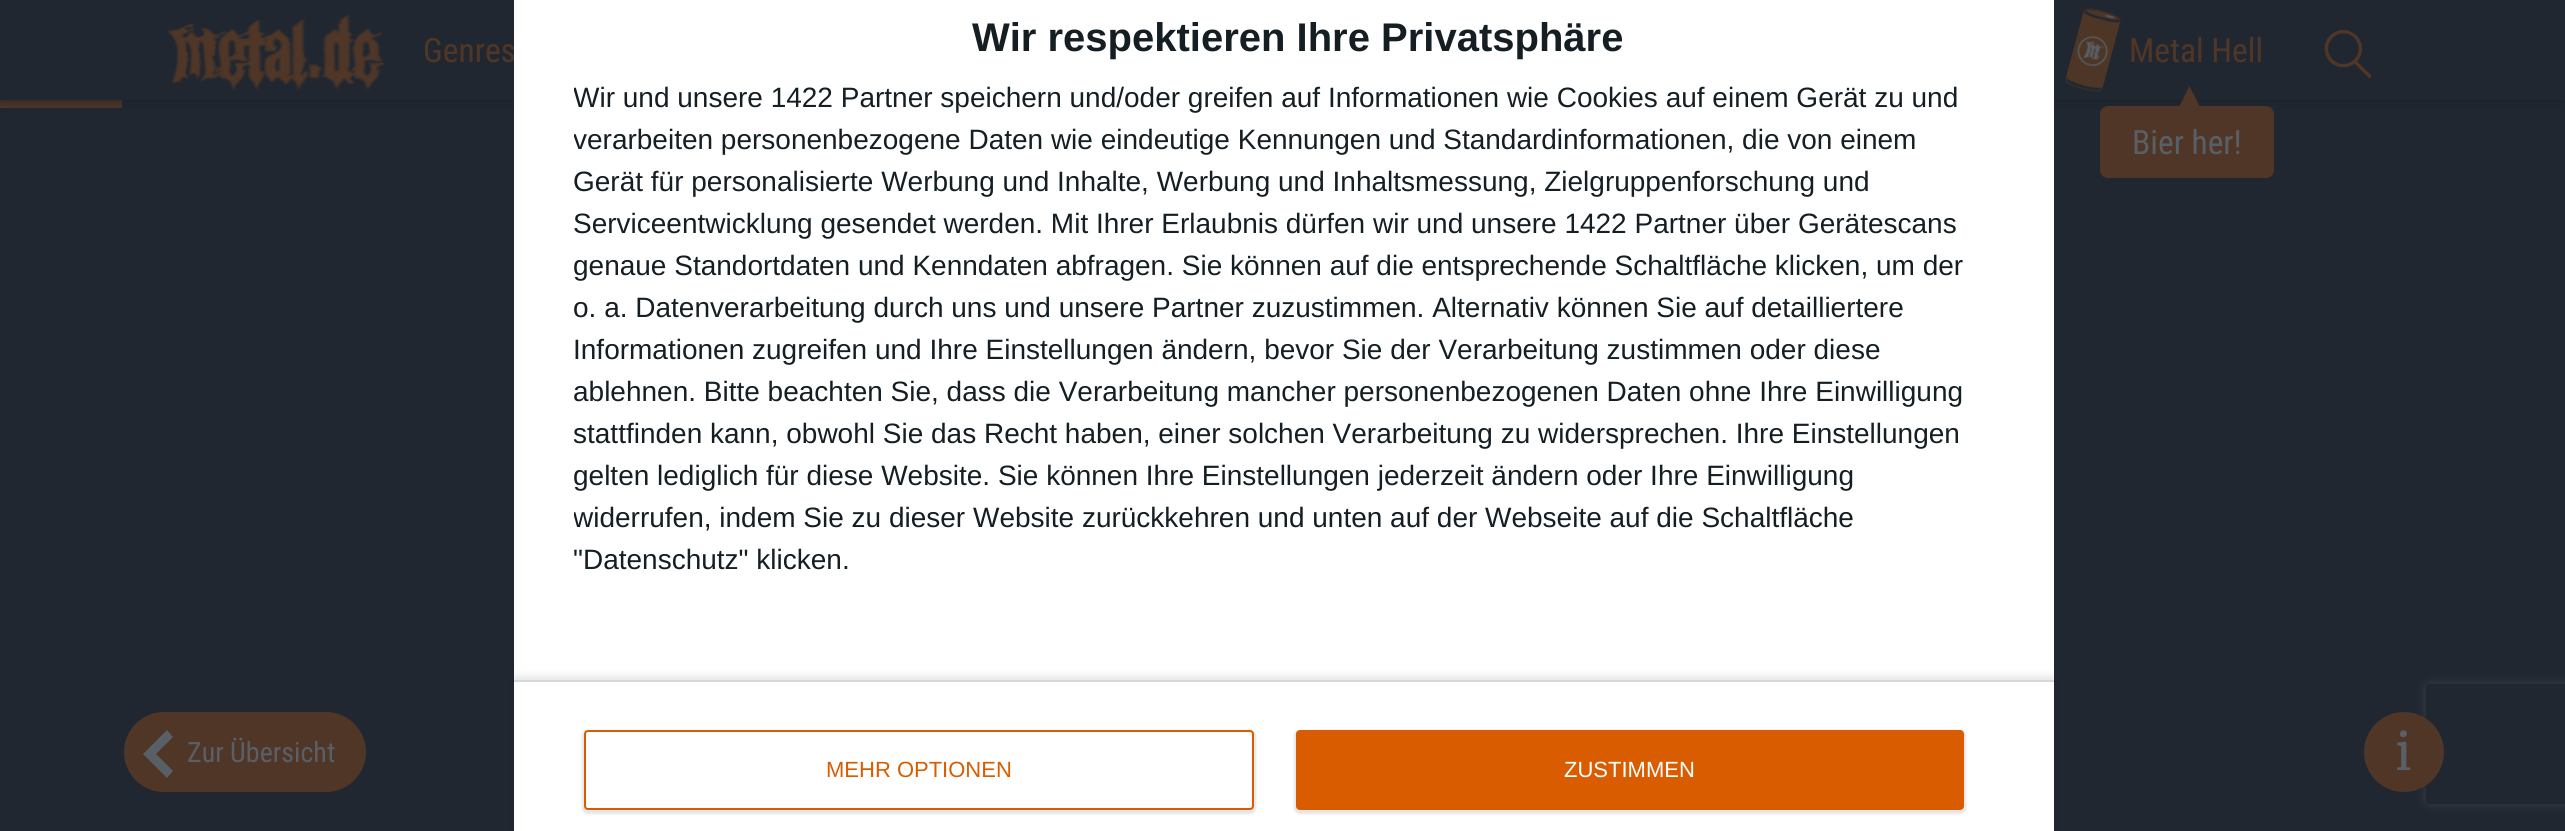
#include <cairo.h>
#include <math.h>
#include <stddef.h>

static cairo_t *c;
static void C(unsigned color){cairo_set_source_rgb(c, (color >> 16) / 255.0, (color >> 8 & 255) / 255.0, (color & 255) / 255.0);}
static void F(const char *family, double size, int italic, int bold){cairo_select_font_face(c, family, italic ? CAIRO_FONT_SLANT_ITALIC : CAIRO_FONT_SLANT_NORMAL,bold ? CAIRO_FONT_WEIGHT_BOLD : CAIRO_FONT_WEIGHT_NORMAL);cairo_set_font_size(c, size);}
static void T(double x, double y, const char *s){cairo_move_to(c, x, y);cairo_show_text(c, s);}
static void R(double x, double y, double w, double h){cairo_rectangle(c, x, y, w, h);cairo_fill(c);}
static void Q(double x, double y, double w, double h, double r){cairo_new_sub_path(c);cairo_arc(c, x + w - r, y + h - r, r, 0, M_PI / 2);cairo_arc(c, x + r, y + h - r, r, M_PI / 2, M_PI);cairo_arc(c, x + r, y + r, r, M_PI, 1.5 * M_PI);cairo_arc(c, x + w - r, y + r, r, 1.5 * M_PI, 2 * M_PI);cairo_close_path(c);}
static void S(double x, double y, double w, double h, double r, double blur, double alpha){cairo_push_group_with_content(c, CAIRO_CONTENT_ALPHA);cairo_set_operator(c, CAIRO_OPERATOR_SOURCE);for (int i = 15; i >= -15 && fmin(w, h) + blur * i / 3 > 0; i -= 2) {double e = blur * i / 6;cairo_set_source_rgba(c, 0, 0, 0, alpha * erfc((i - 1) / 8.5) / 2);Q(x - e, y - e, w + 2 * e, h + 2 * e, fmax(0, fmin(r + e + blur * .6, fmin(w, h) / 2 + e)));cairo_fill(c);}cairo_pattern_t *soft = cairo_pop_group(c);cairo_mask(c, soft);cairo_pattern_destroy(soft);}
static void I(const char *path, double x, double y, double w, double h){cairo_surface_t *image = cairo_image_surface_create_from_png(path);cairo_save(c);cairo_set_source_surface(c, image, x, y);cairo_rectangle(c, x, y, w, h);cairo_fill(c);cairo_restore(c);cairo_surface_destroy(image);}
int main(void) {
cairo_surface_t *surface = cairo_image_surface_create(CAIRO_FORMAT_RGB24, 2565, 831);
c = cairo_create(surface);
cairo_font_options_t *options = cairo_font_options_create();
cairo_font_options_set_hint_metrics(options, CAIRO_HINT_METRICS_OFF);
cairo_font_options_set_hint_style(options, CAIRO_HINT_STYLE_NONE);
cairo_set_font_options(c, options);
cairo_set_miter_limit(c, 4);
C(0x212730);
cairo_paint(c);
C(0x4f3627);
R(0,100,122,8);
C(0x191f27);
S(0,0,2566,100,0,5,1);
C(0x212730);
R(0,0,2565,100);
F("Roboto Condensed",33.5,0,0);
C(0x4f3627);
T(423,62,"Genres");
C(0xffffff);
R(514,0,1540,831);
F("Liberation Sans",40,0,1);
C(0x141e23);
T(972,51,"Wir respektieren Ihre Privatsphäre");
cairo_save(c);
cairo_rectangle(c,574,76,1420,504);
cairo_clip(c);
F("Liberation Sans",28,0,0);
T(573,107,"Wir und unsere 1422 Partner speichern und/oder greifen auf Informationen wie Cookies auf einem Gerät zu und");
T(573,149,"verarbeiten personenbezogene Daten wie eindeutige Kennungen und Standardinformationen, die von einem");
cairo_restore(c);
F("Liberation Sans",28,0,0);
T(573,191,"Gerät für personalisierte Werbung und Inhalte, Werbung und Inhaltsmessung, Zielgruppenforschung und");
T(573,233,"Serviceentwicklung gesendet werden. Mit Ihrer Erlaubnis dürfen wir und unsere 1422 Partner über Gerätescans");
T(573,275,"genaue Standortdaten und Kenndaten abfragen. Sie können auf die entsprechende Schaltfläche klicken, um der");
T(573,317,"o. a. Datenverarbeitung durch uns und unsere Partner zuzustimmen. Alternativ können Sie auf detailliertere");
T(573,359,"Informationen zugreifen und Ihre Einstellungen ändern, bevor Sie der Verarbeitung zustimmen oder diese");
T(573,401,"ablehnen. Bitte beachten Sie, dass die Verarbeitung mancher personenbezogenen Daten ohne Ihre Einwilligung");
T(573,443,"stattfinden kann, obwohl Sie das Recht haben, einer solchen Verarbeitung zu widersprechen. Ihre Einstellungen");
T(573,485,"gelten lediglich für diese Website. Sie können Ihre Einstellungen jederzeit ändern oder Ihre Einwilligung");
cairo_save(c);
cairo_rectangle(c,574,76,1420,504);
cairo_clip(c);
T(573,527,"widerrufen, indem Sie zu dieser Website zurückkehren und unten auf der Webseite auf die Schaltfläche");
cairo_restore(c);
T(573,569,"\"Datenschutz\" klicken.");
cairo_save(c);
cairo_set_fill_rule(c,CAIRO_FILL_RULE_EVEN_ODD);
cairo_new_path(c);
cairo_move_to(c,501,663);
cairo_line_to(c,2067,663);
cairo_line_to(c,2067,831);
cairo_line_to(c,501,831);
cairo_close_path(c);
cairo_move_to(c,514,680);
cairo_line_to(c,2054,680);
cairo_line_to(c,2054,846);
cairo_line_to(c,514,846);
cairo_close_path(c);
cairo_clip(c);
C(0x000000);
S(514,676,1540,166,0,4,.1);
cairo_restore(c);
C(0xd8d8d8);
R(514,680,1540,2);
C(0x000000);
S(582,730,674,84,6,1,.1);
C(0xffffff);
Q(585,731,668,78,3);
cairo_fill_preserve(c);
C(0xd95c00);
cairo_stroke(c);
F("Liberation Sans",22,0,0);
T(826,777,"MEHR OPTIONEN");
C(0x000000);
S(1294,730,672,84,6,1,.1);
C(0xd95c00);
Q(1296,730,668,80,4);
cairo_fill(c);
C(0xffffff);
T(1564,777,"ZUSTIMMEN");
I("1.png",167,13,218,78);
I("2.png",2065,8,56,84);
F("Roboto Condensed",33.5,0,0);
C(0x4f3627);
T(2129,62,"Metal Hell");
Q(2100,106,174,72,8);
cairo_fill(c);
cairo_new_path(c);
cairo_move_to(c,2199.5,106);
cairo_line_to(c,2179.5,106);
cairo_line_to(c,2189.5,86);
cairo_close_path(c);
cairo_fill(c);
C(0x595f67);
T(2132,154,"Bier her!");
I("3.png",2324,30,48,48);
C(0x4f3627);
Q(124,712,242,80,40);
cairo_fill(c);
C(0x595f67);
cairo_new_path(c);
cairo_move_to(c,167,730);
cairo_line_to(c,143,754);
cairo_line_to(c,167,778);
cairo_line_to(c,173,771);
cairo_line_to(c,156,754);
cairo_line_to(c,173,737);
cairo_close_path(c);
cairo_fill(c);
F("Roboto Condensed",28,0,0);
T(187,762,"Zur Übersicht");
cairo_save(c);
cairo_set_fill_rule(c,CAIRO_FILL_RULE_EVEN_ODD);
cairo_new_path(c);
cairo_move_to(c,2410,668);
cairo_line_to(c,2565,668);
cairo_line_to(c,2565,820);
cairo_line_to(c,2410,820);
cairo_close_path(c);
cairo_move_to(c,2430,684);
cairo_line_to(c,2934,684);
cairo_curve_to(c,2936,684,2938,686,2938,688);
cairo_line_to(c,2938,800);
cairo_curve_to(c,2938,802,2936,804,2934,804);
cairo_line_to(c,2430,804);
cairo_curve_to(c,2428,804,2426,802,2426,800);
cairo_line_to(c,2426,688);
cairo_curve_to(c,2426,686,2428,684,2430,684);
cairo_close_path(c);
cairo_clip(c);
C(0x393f47);
S(2426,684,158,120,4,5,1);
cairo_restore(c);
C(0x4f3627);
cairo_arc(c,2404,752,40,0,2 * M_PI);
cairo_fill(c);
F("Merriweather",50,0,0);
C(0x595f67);
T(2395,770,"i");
cairo_surface_write_to_png(surface, "o.png");
cairo_font_options_destroy(options);
cairo_destroy(c);
cairo_surface_destroy(surface);
return 0;
}
